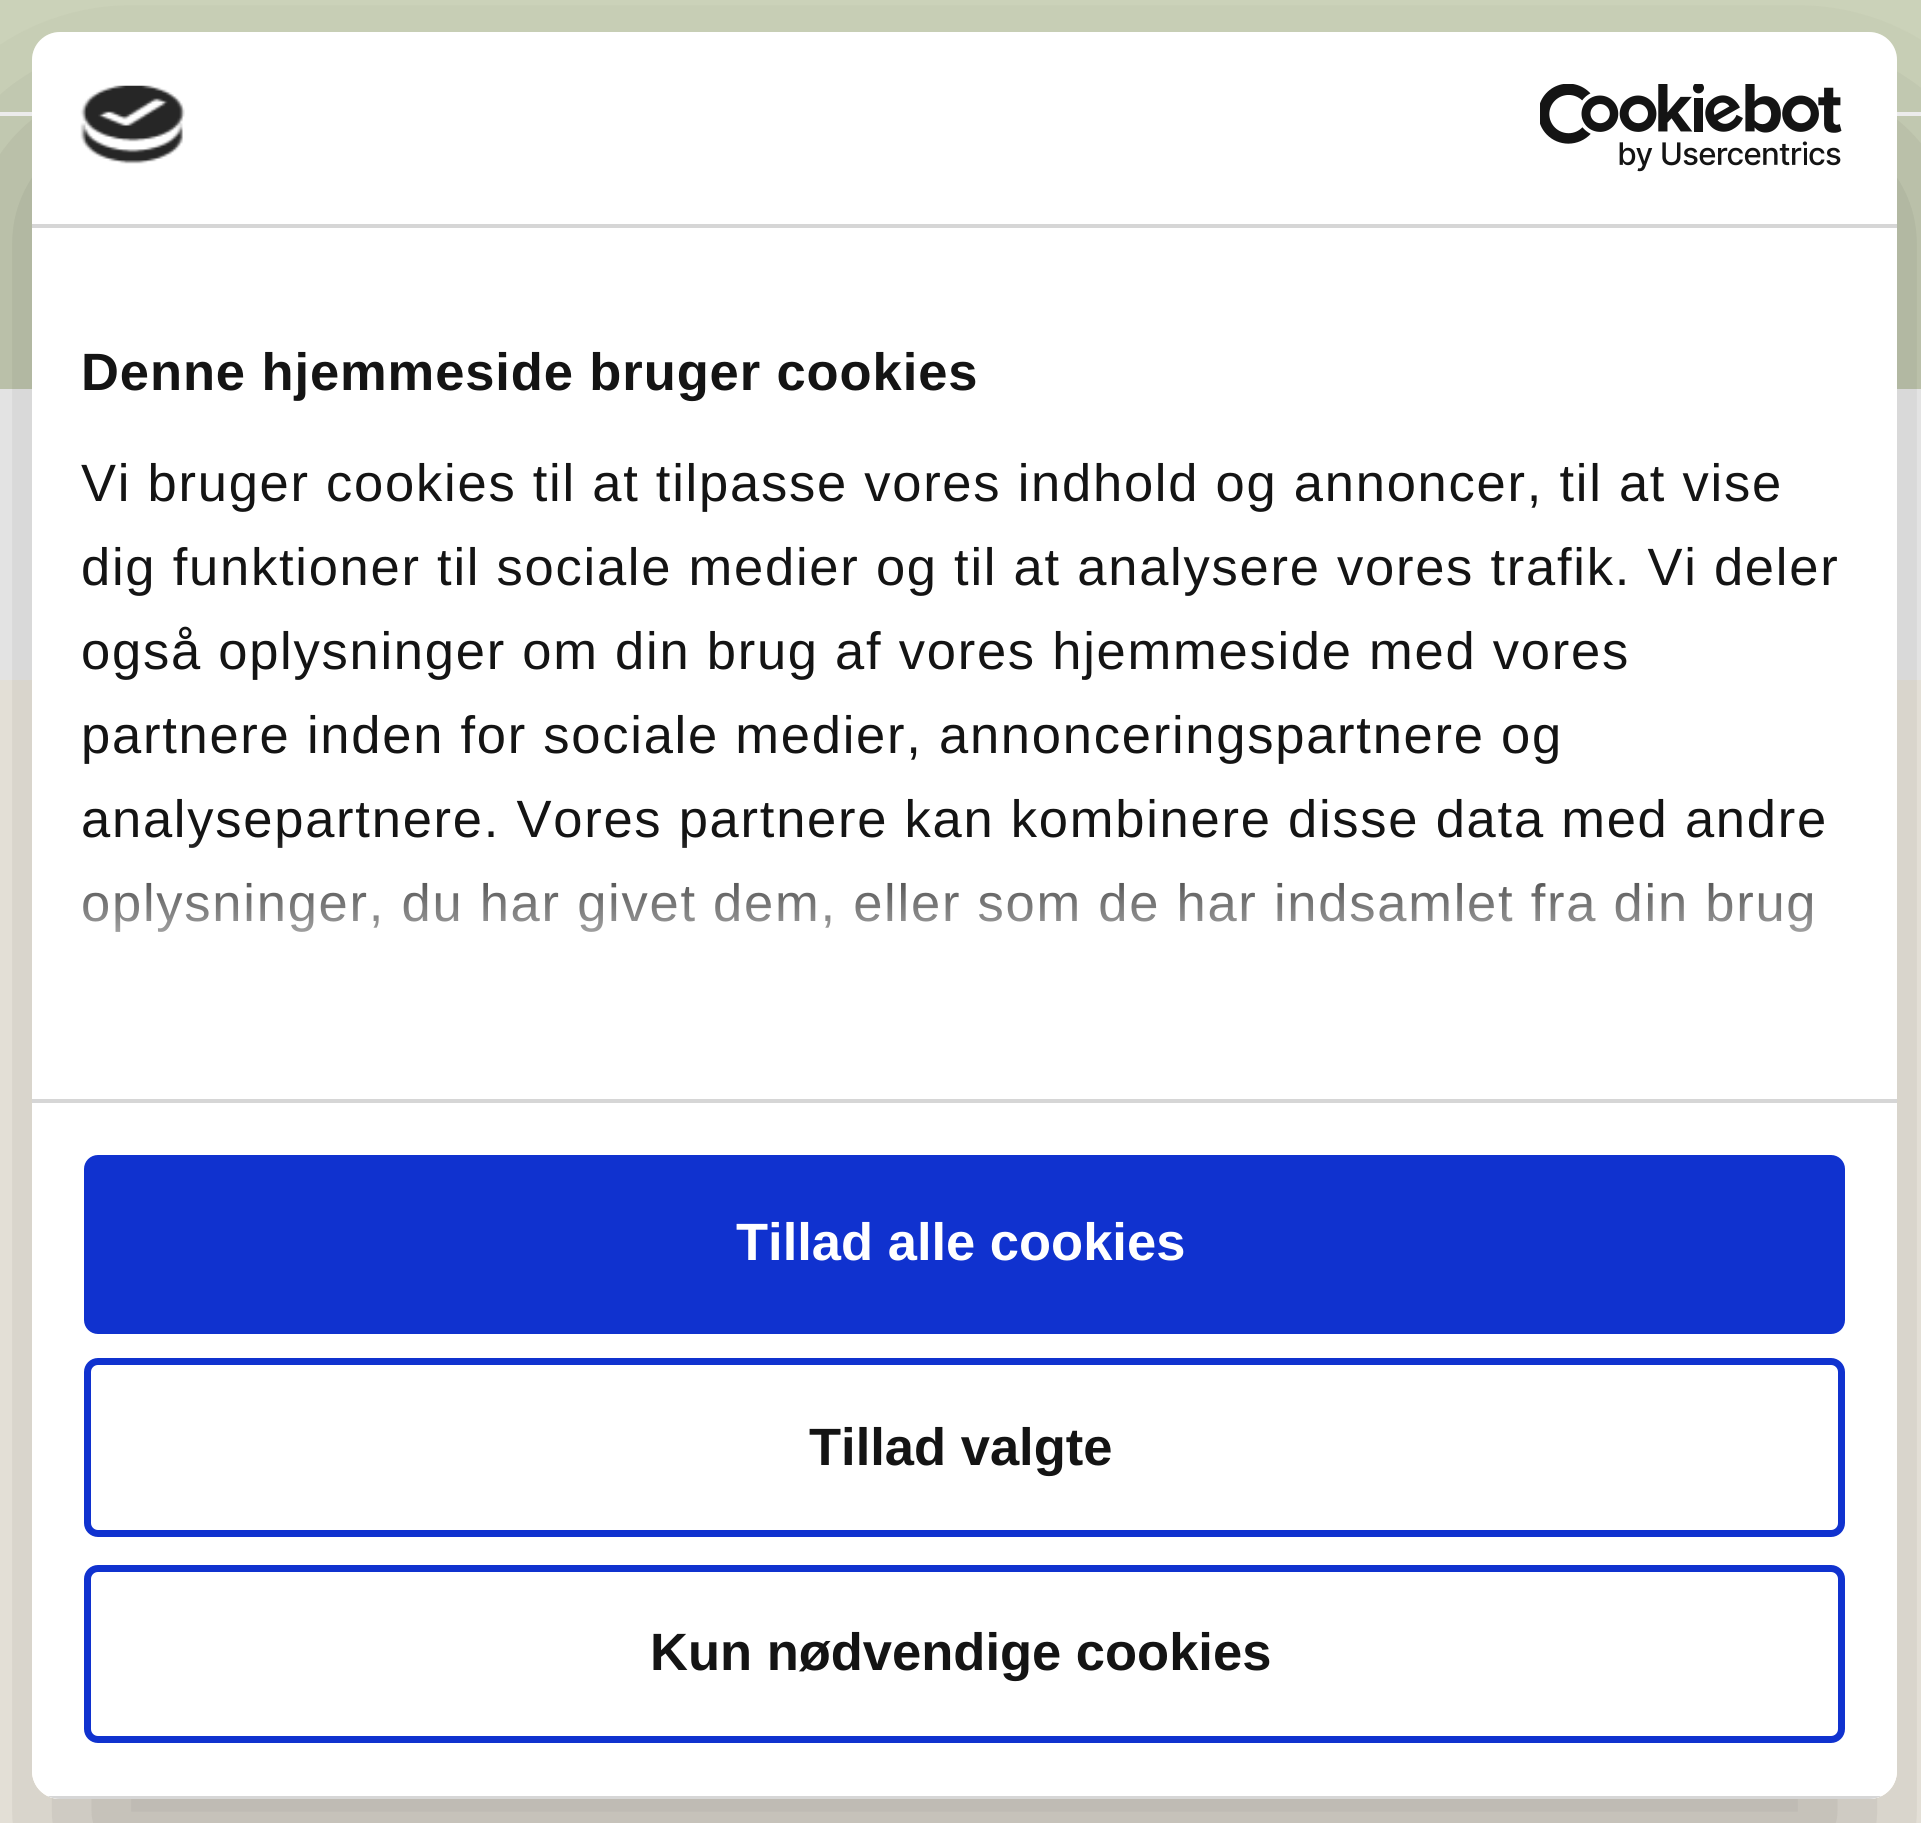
#include <cairo.h>
#include <math.h>
#include <stddef.h>

static cairo_t *c;
static void C(unsigned color){cairo_set_source_rgb(c, (color >> 16) / 255.0, (color >> 8 & 255) / 255.0, (color & 255) / 255.0);}
static void F(const char *family, double size, int italic, int bold){cairo_select_font_face(c, family, italic ? CAIRO_FONT_SLANT_ITALIC : CAIRO_FONT_SLANT_NORMAL,bold ? CAIRO_FONT_WEIGHT_BOLD : CAIRO_FONT_WEIGHT_NORMAL);cairo_set_font_size(c, size);}
static void T(double x, double y, const char *s){cairo_move_to(c, x, y);cairo_show_text(c, s);}
static void L(double x, double y, const char *s, double letter, double word){cairo_move_to(c, x, y);while (*s) {char ch[5] = {0};int n = 0;do ch[n++] = *s++; while ((*s & 0xC0) == 0x80);cairo_show_text(c, ch);cairo_rel_move_to(c, letter + word * (*ch == ' '), 0);}}
static void R(double x, double y, double w, double h){cairo_rectangle(c, x, y, w, h);cairo_fill(c);}
static void Q(double x, double y, double w, double h, double r){cairo_new_sub_path(c);cairo_arc(c, x + w - r, y + h - r, r, 0, M_PI / 2);cairo_arc(c, x + r, y + h - r, r, M_PI / 2, M_PI);cairo_arc(c, x + r, y + r, r, M_PI, 1.5 * M_PI);cairo_arc(c, x + w - r, y + r, r, 1.5 * M_PI, 2 * M_PI);cairo_close_path(c);}
static void S(double x, double y, double w, double h, double r, double blur, double alpha){cairo_push_group_with_content(c, CAIRO_CONTENT_ALPHA);cairo_set_operator(c, CAIRO_OPERATOR_SOURCE);for (int i = 15; i >= -15 && fmin(w, h) + blur * i / 3 > 0; i -= 2) {double e = blur * i / 6;cairo_set_source_rgba(c, 0, 0, 0, alpha * erfc((i - 1) / 8.5) / 2);Q(x - e, y - e, w + 2 * e, h + 2 * e, fmax(0, fmin(r + e + blur * .6, fmin(w, h) / 2 + e)));cairo_fill(c);}cairo_pattern_t *soft = cairo_pop_group(c);cairo_mask(c, soft);cairo_pattern_destroy(soft);}
static void I(const char *path, double x, double y, double w, double h){cairo_surface_t *image = cairo_image_surface_create_from_png(path);cairo_save(c);cairo_set_source_surface(c, image, x, y);cairo_rectangle(c, x, y, w, h);cairo_fill(c);cairo_restore(c);cairo_surface_destroy(image);}
int main(void) {
cairo_surface_t *surface = cairo_image_surface_create(CAIRO_FORMAT_RGB24, 1921, 1823);
c = cairo_create(surface);
cairo_font_options_t *options = cairo_font_options_create();
cairo_font_options_set_hint_metrics(options, CAIRO_HINT_METRICS_OFF);
cairo_font_options_set_hint_style(options, CAIRO_HINT_STYLE_NONE);
cairo_set_font_options(c, options);
cairo_set_miter_limit(c, 4);
cairo_pattern_t *gradient;
C(0xfffaf0);
cairo_paint(c);
C(0xd1d8be);
R(0,0,1921,389);
C(0xffffff);
R(0,389,1921,291);
R(0,112,1921,4);
cairo_save(c);
cairo_set_fill_rule(c,CAIRO_FILL_RULE_EVEN_ODD);
cairo_new_path(c);
cairo_move_to(c,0,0);
cairo_line_to(c,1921,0);
cairo_line_to(c,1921,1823);
cairo_line_to(c,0,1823);
cairo_close_path(c);
cairo_move_to(c,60,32);
cairo_line_to(c,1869,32);
cairo_curve_to(c,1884.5,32,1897,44.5,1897,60);
cairo_line_to(c,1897,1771);
cairo_curve_to(c,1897,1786.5,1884.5,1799,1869,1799);
cairo_line_to(c,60,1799);
cairo_curve_to(c,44.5,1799,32,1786.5,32,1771);
cairo_line_to(c,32,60);
cairo_curve_to(c,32,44.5,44.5,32,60,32);
cairo_close_path(c);
cairo_clip(c);
C(0x000000);
S(32,144,1865,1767,28,119,.3);
cairo_restore(c);
Q(32,32,1865,1767,28);
cairo_fill(c);
C(0xd6d6d6);
R(32,224,1865,4);
I("1.png",80,85,105,79);
I("2.png",1540,84,302,88);
R(32,1099,1865,4);
F("Liberation Sans",52.5,0,1);
C(0x141414);
L(81,390,"Denne hjemmeside bruger cookies",.9,0);
F("Liberation Sans",52.5,0,0);
L(81,501,"Vi bruger cookies til at tilpasse vores indhold og annoncer, til at vise",1.75,0);
L(81,585,"dig funktioner til sociale medier og til at analysere vores trafik. Vi deler",1.75,0);
L(81,669,"også oplysninger om din brug af vores hjemmeside med vores",1.75,0);
L(81,753,"partnere inden for sociale medier, annonceringspartnere og",1.75,0);
L(81,837,"analysepartnere. Vores partnere kan kombinere disse data med andre",1.75,0);
L(81,921,"oplysninger, du har givet dem, eller som de har indsamlet fra din brug",1.75,0);
gradient = cairo_pattern_create_linear(940,1097,940,835);
cairo_pattern_add_color_stop_rgba(gradient,0,1,1,1,1);
cairo_pattern_add_color_stop_rgba(gradient,.5,1,1,1,.8);
cairo_pattern_add_color_stop_rgba(gradient,1,1,1,1,0);
cairo_set_source(c,gradient);
cairo_pattern_destroy(gradient);
R(82,839,1730,93);
cairo_save(c);
Q(32,32,1865,1767,28);
cairo_clip(c);
C(0xd6d6d6);
R(47,1796,1835,3);
cairo_restore(c);
C(0x1032cf);
Q(87.5,1158.5,1754,172,10.5);
cairo_fill_preserve(c);
cairo_set_line_width(c,7);
cairo_stroke(c);
F("Liberation Sans",52.5,0,1);
C(0xffffff);
T(736,1260,"Tillad alle cookies");
Q(87.5,1361.5,1754,172,10.5);
C(0x1032cf);
cairo_stroke(c);
C(0x141414);
T(809,1465,"Tillad valgte");
Q(87.5,1568.5,1754,171,10.5);
C(0x1032cf);
cairo_stroke(c);
C(0x141414);
T(650,1670,"Kun nødvendige cookies");
cairo_surface_write_to_png(surface, "o.png");
cairo_font_options_destroy(options);
cairo_destroy(c);
cairo_surface_destroy(surface);
return 0;
}
